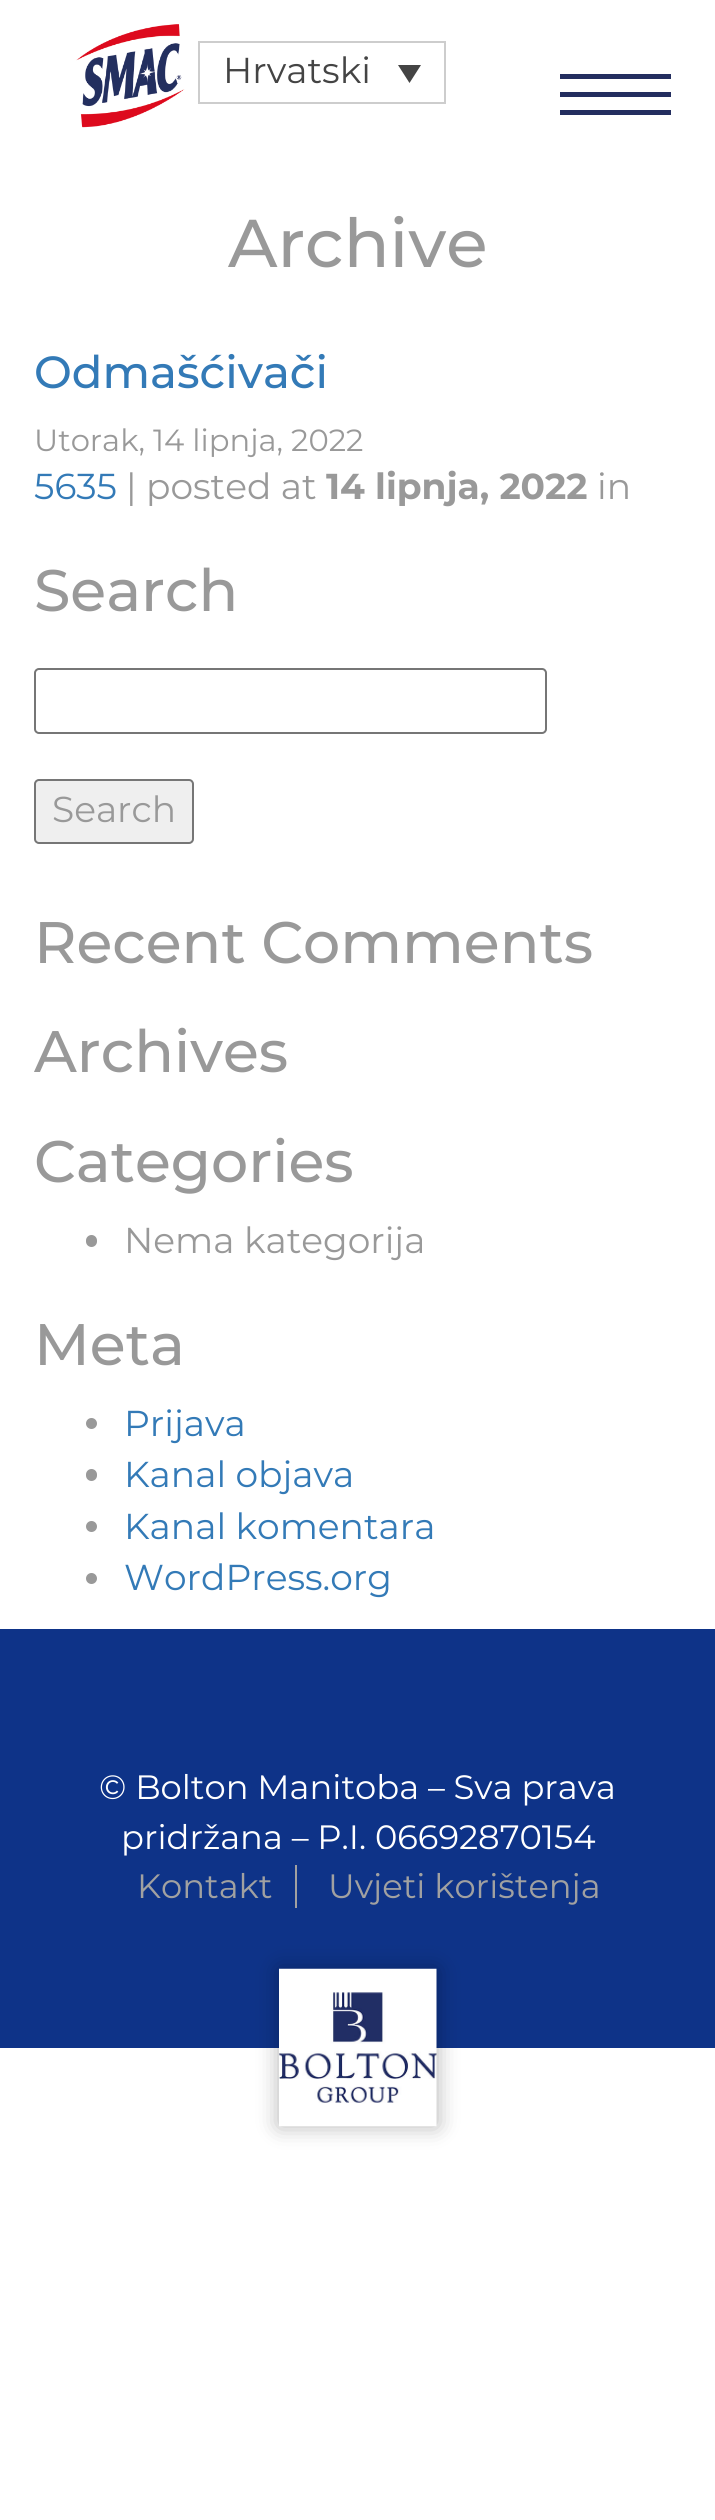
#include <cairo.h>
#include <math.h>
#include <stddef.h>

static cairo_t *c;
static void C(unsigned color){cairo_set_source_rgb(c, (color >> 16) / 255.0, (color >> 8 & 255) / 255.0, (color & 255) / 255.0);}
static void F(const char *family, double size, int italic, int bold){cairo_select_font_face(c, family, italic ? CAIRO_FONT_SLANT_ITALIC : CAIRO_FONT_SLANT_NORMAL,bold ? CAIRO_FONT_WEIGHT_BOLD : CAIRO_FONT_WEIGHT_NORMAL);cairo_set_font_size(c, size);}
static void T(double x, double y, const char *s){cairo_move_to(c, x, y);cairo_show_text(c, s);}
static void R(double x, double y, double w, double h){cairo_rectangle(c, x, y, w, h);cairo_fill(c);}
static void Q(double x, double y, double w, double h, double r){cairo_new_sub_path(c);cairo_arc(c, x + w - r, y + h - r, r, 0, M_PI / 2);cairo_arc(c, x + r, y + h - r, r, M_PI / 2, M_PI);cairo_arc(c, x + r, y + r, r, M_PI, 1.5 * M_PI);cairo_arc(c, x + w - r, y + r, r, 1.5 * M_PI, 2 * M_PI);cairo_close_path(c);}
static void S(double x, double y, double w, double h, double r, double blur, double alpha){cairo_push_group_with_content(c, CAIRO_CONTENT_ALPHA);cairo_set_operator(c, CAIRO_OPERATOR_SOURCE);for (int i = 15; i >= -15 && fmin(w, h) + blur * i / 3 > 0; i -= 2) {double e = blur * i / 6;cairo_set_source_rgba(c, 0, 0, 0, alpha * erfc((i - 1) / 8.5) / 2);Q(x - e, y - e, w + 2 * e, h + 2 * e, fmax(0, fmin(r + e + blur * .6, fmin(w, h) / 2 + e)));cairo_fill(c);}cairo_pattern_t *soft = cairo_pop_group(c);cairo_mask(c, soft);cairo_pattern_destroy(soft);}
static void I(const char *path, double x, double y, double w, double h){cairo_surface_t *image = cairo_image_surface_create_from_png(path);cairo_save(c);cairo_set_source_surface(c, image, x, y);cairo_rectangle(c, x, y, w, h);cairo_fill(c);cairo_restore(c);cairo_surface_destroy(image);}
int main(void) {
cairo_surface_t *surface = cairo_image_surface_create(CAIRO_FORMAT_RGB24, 715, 2520);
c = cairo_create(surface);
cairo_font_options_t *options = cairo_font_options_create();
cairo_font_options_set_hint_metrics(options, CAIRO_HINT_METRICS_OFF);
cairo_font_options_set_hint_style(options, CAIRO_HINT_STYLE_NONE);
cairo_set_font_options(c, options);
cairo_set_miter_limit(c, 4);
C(0xffffff);
cairo_paint(c);
I("1.png",76,24,109,104);
cairo_rectangle(c,199,42,246,61);
C(0xcdcdcd);
cairo_stroke(c);
F("Montserrat",36,0,0);
C(0x444444);
T(223,83,"Hrvatski");
cairo_new_path(c);
cairo_move_to(c,398,65);
cairo_line_to(c,421,65);
cairo_line_to(c,409.5,83);
cairo_close_path(c);
cairo_fill(c);
C(0x232e5f);
R(560,74,111,5);
R(560,92,111,5);
R(560,110,111,5);
F("Montserrat Medium",67.5,0,0);
C(0x999999);
T(228,267,"Archive");
F("Montserrat Medium",45,0,0);
C(0x337ab7);
T(34,388,"Odmašćivači");
F("Montserrat",30.6,0,0);
C(0x999999);
T(34,451,"Utorak, 14 lipnja, 2022");
F("Montserrat",36,0,0);
C(0x337ab7);
T(34,499,"5635");
C(0x999999);
T(126,499,"| posted at");
F("Montserrat",36,0,1);
T(326,499,"14 lipnja, 2022");
F("Montserrat",36,0,0);
T(597,499,"in");
F("Montserrat Medium",58.5,0,0);
T(34,611,"Search");
Q(35,669,511,64,4);
C(0x767676);
cairo_stroke(c);
C(0xefefef);
Q(35,780,158,63,4);
cairo_fill_preserve(c);
C(0x767676);
cairo_stroke(c);
F("Montserrat",36,0,0);
C(0x999999);
T(52,822,"Search");
F("Montserrat Medium",58.5,0,0);
T(34,963,"Recent Comments");
T(34,1072,"Archives");
T(34,1182,"Categories");
Q(86,1235,11,12,5.5);
cairo_fill(c);
F("Montserrat",36,0,0);
T(124,1253,"Nema kategorija");
F("Montserrat Medium",58.5,0,0);
T(34,1365,"Meta");
cairo_new_path(c);
cairo_arc(c,91.5,1423.5,5.5,0,2 * M_PI);
cairo_fill(c);
F("Montserrat",36,0,0);
C(0x337ab7);
T(124,1436,"Prijava");
C(0x999999);
Q(86,1469,11,12,5.5);
cairo_fill(c);
C(0x337ab7);
T(124,1487,"Kanal objava");
C(0x999999);
cairo_new_path(c);
cairo_arc(c,91.5,1526.5,5.5,0,2 * M_PI);
cairo_fill(c);
C(0x337ab7);
T(124,1539,"Kanal komentara");
C(0x999999);
cairo_new_path(c);
cairo_arc(c,91.5,1578.5,5.5,0,2 * M_PI);
cairo_fill(c);
C(0x337ab7);
T(124,1590,"WordPress.org");
C(0x0e3388);
R(0,1629,715,419);
F("Montserrat",33.75,0,0);
C(0xffffff);
T(99,1799,"© Bolton Manitoba – Sva prava");
T(121,1849,"pridržana – P.I. 06692870154");
C(0xa1a1a1);
T(137,1898,"Kontakt");
R(295,1865,2,43);
T(328,1898,"Uvjeti korištenja");
C(0x000000);
S(279,1969,158,157,0,11,.3);
I("2.png",279,1968,158,159);
cairo_surface_write_to_png(surface, "o.png");
cairo_font_options_destroy(options);
cairo_destroy(c);
cairo_surface_destroy(surface);
return 0;
}
